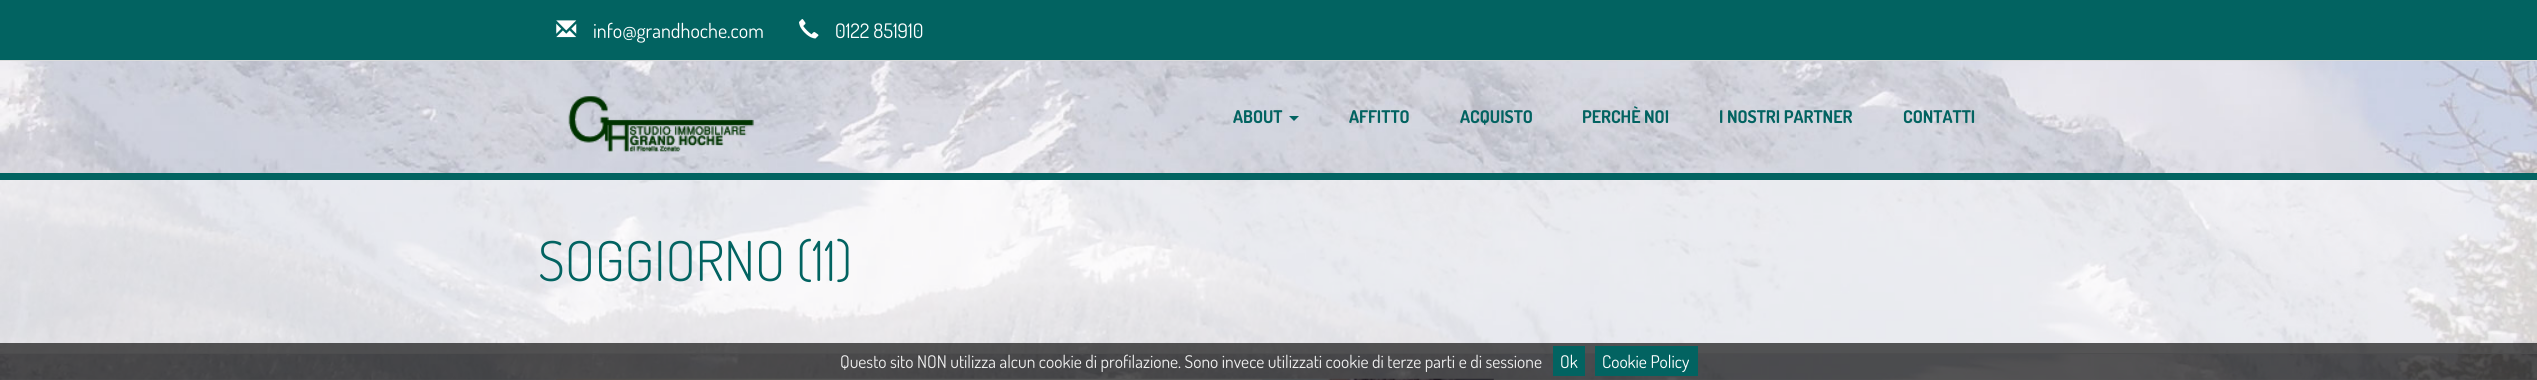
#include <cairo.h>
#include <math.h>
#include <stddef.h>

static cairo_t *c;
static void C(unsigned color){cairo_set_source_rgb(c, (color >> 16) / 255.0, (color >> 8 & 255) / 255.0, (color & 255) / 255.0);}
static void F(const char *family, double size, int italic, int bold){cairo_select_font_face(c, family, italic ? CAIRO_FONT_SLANT_ITALIC : CAIRO_FONT_SLANT_NORMAL,bold ? CAIRO_FONT_WEIGHT_BOLD : CAIRO_FONT_WEIGHT_NORMAL);cairo_set_font_size(c, size);}
static void T(double x, double y, const char *s){cairo_move_to(c, x, y);cairo_show_text(c, s);}
static void R(double x, double y, double w, double h){cairo_rectangle(c, x, y, w, h);cairo_fill(c);}
static void I(const char *path, double x, double y, double w, double h){cairo_surface_t *image = cairo_image_surface_create_from_png(path);cairo_save(c);cairo_set_source_surface(c, image, x, y);cairo_rectangle(c, x, y, w, h);cairo_fill(c);cairo_restore(c);cairo_surface_destroy(image);}
int main(void) {
cairo_surface_t *surface = cairo_image_surface_create(CAIRO_FORMAT_RGB24, 2537, 380);
c = cairo_create(surface);
cairo_font_options_t *options = cairo_font_options_create();
cairo_font_options_set_hint_metrics(options, CAIRO_HINT_METRICS_OFF);
cairo_font_options_set_hint_style(options, CAIRO_HINT_STYLE_NONE);
cairo_set_font_options(c, options);
cairo_set_miter_limit(c, 4);
C(0xffffff);
cairo_paint(c);
I("1.png",0,61,2537,319);
C(0x026361);
R(0,0,2537,60);
C(0xdbdbdb);
R(0,60,2537,1);
I("2.png",556,20,21,18);
F("Dosis",20,0,0);
C(0xffffff);
T(593,38,"info@grandhoche.com");
I("3.png",799,19,20,20);
T(835,38,"0122 851910");
C(0x026361);
R(0,173,2537,7);
I("4.png",568,96,186,56);
F("Dosis",17.5,0,1);
T(1233,123,"ABOUT");
cairo_new_path(c);
cairo_move_to(c,1289,116);
cairo_line_to(c,1299,116);
cairo_line_to(c,1294,121);
cairo_close_path(c);
cairo_fill(c);
T(1349,123,"AFFITTO");
T(1460,123,"ACQUISTO");
T(1582,123,"PERCHÈ NOI");
T(1719,123,"I NOSTRI PARTNER");
T(1903,123,"CONTATTI");
cairo_set_source_rgba(c,1,1,1,0.5);
R(0,180,2537,173);
F("Dosis Light",55,0,0);
C(0x026361);
T(538,281,"SOGGIORNO (11)");
C(0xdadbdd);
R(0,353,2537,1);
I("5.png",556,378,938,2);
cairo_set_source_rgba(c,0.067,0.067,0.067,0.7);
R(0,343,2537,37);
F("Dosis",17.5,0,0);
C(0xeeeeee);
T(840,368,"Questo sito NON utilizza alcun cookie di profilazione. Sono invece utilizzati cookie di terze parti e di sessione");
C(0x026361);
R(1553,346,32,30);
C(0xffffff);
T(1560,368,"Ok");
C(0x026361);
R(1595,346,103,30);
C(0xffffff);
T(1602,368,"Cookie Policy");
cairo_surface_write_to_png(surface, "o.png");
cairo_font_options_destroy(options);
cairo_destroy(c);
cairo_surface_destroy(surface);
return 0;
}
